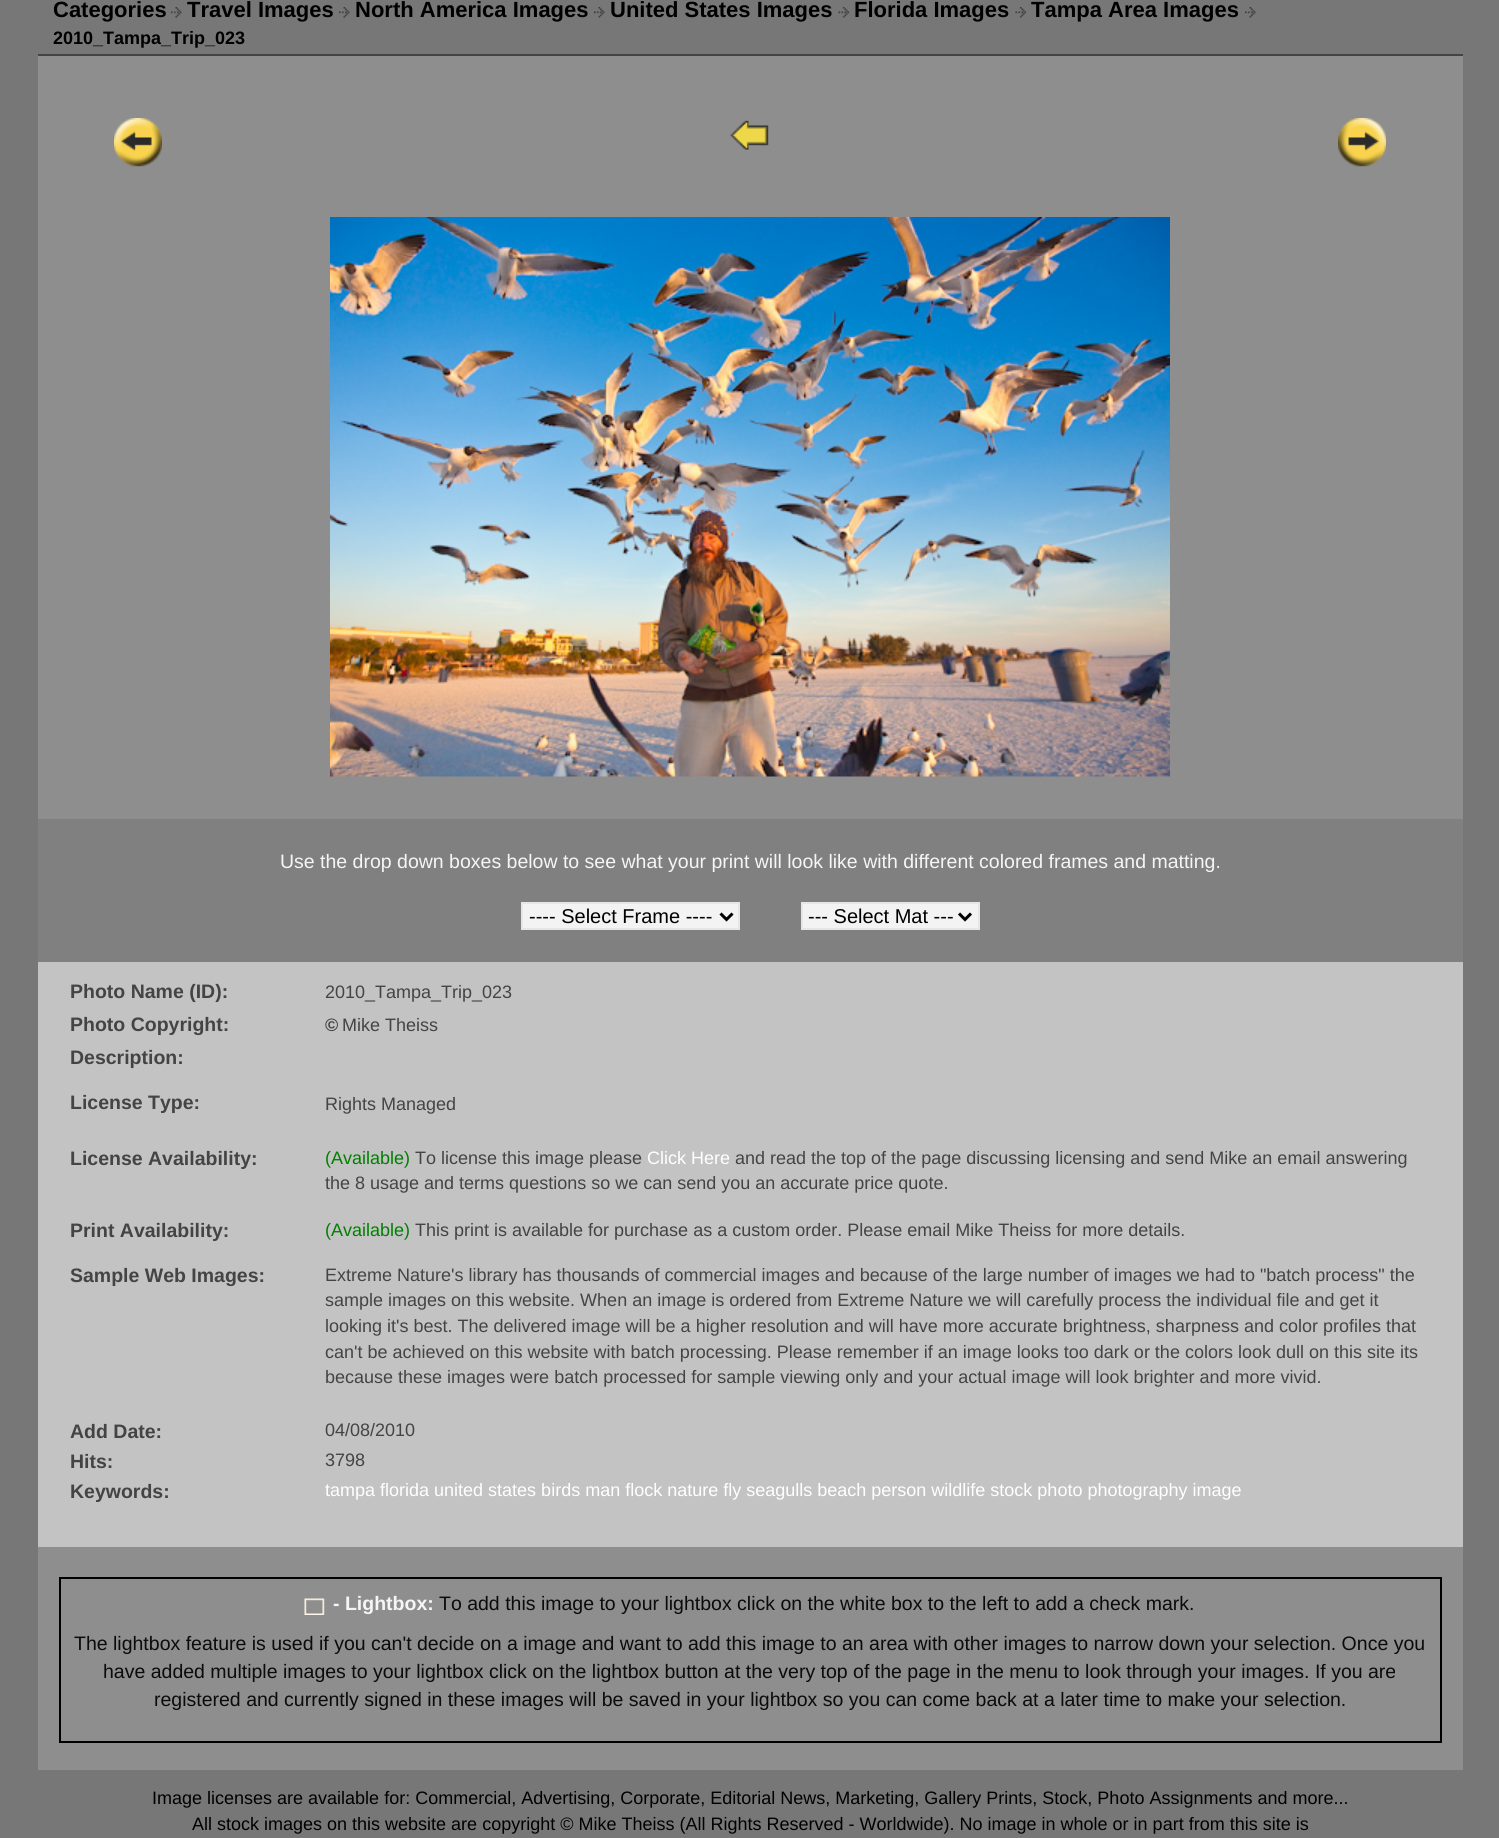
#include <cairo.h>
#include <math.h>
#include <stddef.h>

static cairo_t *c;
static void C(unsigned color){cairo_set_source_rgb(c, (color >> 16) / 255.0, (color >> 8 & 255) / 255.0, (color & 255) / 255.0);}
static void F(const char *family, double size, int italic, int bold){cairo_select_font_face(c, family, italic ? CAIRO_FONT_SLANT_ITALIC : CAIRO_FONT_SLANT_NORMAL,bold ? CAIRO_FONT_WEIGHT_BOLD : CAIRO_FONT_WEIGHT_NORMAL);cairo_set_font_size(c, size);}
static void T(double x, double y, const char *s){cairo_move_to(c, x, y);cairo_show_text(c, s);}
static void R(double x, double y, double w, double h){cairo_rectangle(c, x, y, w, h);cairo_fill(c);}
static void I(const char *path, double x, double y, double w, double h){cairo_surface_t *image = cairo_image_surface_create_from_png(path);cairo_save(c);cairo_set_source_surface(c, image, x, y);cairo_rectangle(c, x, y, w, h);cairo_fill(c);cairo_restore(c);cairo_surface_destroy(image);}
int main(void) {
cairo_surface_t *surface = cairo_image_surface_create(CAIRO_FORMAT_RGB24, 1499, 1838);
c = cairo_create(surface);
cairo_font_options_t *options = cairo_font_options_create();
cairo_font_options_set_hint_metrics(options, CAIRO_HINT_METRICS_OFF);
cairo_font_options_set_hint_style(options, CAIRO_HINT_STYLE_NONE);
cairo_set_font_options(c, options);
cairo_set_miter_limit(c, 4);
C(0x777777);
cairo_paint(c);
C(0x8e8e8e);
R(38,56,1425,1714);
C(0x444444);
R(38,54,1425,2);
F("Liberation Sans",22,0,1);
C(0x000000);
T(53,17,"Categories");
I("1.png",171,7,11,11);
T(187,17,"Travel Images");
I("2.png",339,7,11,11);
T(355,17,"North America Images");
I("2.png",594,7,11,11);
T(610,17,"United States Images");
I("3.png",838,7,11,11);
T(854,17,"Florida Images");
I("3.png",1015,7,11,11);
T(1031,17,"Tampa Area Images");
I("2.png",1245,7,11,11);
F("Liberation Sans",18,0,1);
T(53,44,"2010_Tampa_Trip_023");
I("4.png",114,118,48,49);
I("5.png",730,120,39,30);
I("6.png",1338,118,48,49);
I("7.png",330,217,840,560);
C(0x808080);
R(38,819,1425,143);
F("Liberation Sans",19.5,0,0);
C(0xf5f5f5);
T(280,868,"Use the drop down boxes below to see what your print will look like with different colored frames and matting.");
C(0xf3f3f3);
cairo_rectangle(c,522,903,217,26);
cairo_fill_preserve(c);
C(0xe6e6e6);
cairo_stroke(c);
cairo_new_path(c);
cairo_move_to(c,720.5,913.5);
cairo_line_to(c,726.5,919.5);
cairo_line_to(c,732.5,913.5);
C(0x000000);
cairo_set_line_width(c,3);
cairo_stroke(c);
F("Liberation Sans",20,0,0);
T(529,923,"---- Select Frame ----");
C(0xf3f3f3);
cairo_rectangle(c,802,903,177,26);
cairo_fill_preserve(c);
C(0xe6e6e6);
cairo_set_line_width(c,2);
cairo_stroke(c);
cairo_new_path(c);
cairo_move_to(c,959,913.5);
cairo_line_to(c,965,919.5);
cairo_line_to(c,971,913.5);
C(0x000000);
cairo_set_line_width(c,3);
cairo_stroke(c);
T(808,923,"--- Select Mat ---");
C(0xc3c3c3);
R(38,962,1425,45);
F("Liberation Sans",19.5,0,1);
C(0x444444);
T(70,998,"Photo Name (ID):");
F("Liberation Sans",18,0,0);
T(325,998,"2010_Tampa_Trip_023");
C(0xc3c3c3);
R(38,1007,1425,39);
F("Liberation Sans",19.5,0,1);
C(0x444444);
T(70,1031,"Photo Copyright:");
F("Liberation Sans",18,0,1);
T(325,1031,"©");
F("Liberation Sans",18,0,0);
T(342,1031,"Mike Theiss");
C(0xc3c3c3);
R(38,1046,1425,27);
F("Liberation Sans",19.5,0,1);
C(0x444444);
T(70,1064,"Description:");
C(0xc3c3c3);
R(38,1073,1425,45);
C(0x444444);
T(70,1109,"License Type:");
F("Liberation Sans",18,0,0);
T(325,1110,"Rights Managed");
C(0xc3c3c3);
R(38,1118,1425,28);
R(38,1146,1425,72);
F("Liberation Sans",19.5,0,1);
C(0x444444);
T(70,1165,"License Availability:");
F("Liberation Sans",18,0,0);
C(0x008000);
T(325,1164,"(Available)");
C(0x444444);
T(415,1164,"To license this image please");
C(0xffffff);
T(647,1164,"Click Here");
C(0x444444);
T(735,1164,"and read the top of the page discussing licensing and send Mike an email answering");
T(325,1189,"the 8 usage and terms questions so we can send you an accurate price quote.");
C(0xc3c3c3);
R(38,1218,1425,45);
F("Liberation Sans",19.5,0,1);
C(0x444444);
T(70,1237,"Print Availability:");
F("Liberation Sans",18,0,0);
C(0x008000);
T(325,1236,"(Available)");
C(0x444444);
T(415,1236,"This print is available for purchase as a custom order. Please email Mike Theiss for more details.");
C(0xc3c3c3);
R(38,1263,1425,128);
F("Liberation Sans",19.5,0,1);
C(0x444444);
T(70,1282,"Sample Web Images:");
F("Liberation Sans",18,0,0);
T(325,1281,"Extreme Nature's library has thousands of commercial images and because of the large number of images we had to \"batch process\" the");
T(325,1306,"sample images on this website. When an image is ordered from Extreme Nature we will carefully process the individual file and get it");
T(325,1332,"looking it's best. The delivered image will be a higher resolution and will have more accurate brightness, sharpness and color profiles that");
T(325,1358,"can't be achieved on this website with batch processing. Please remember if an image looks too dark or the colors look dull on this site its");
T(325,1383,"because these images were batch processed for sample viewing only and your actual image will look brighter and more vivid.");
C(0xc3c3c3);
R(38,1391,1425,27);
R(38,1418,1425,30);
F("Liberation Sans",19.5,0,1);
C(0x444444);
T(70,1438,"Add Date:");
F("Liberation Sans",18,0,0);
T(325,1436,"04/08/2010");
C(0xc3c3c3);
R(38,1448,1425,30);
F("Liberation Sans",19.5,0,1);
C(0x444444);
T(70,1468,"Hits:");
F("Liberation Sans",18,0,0);
T(325,1466,"3798");
C(0xc3c3c3);
R(38,1478,1425,42);
F("Liberation Sans",19.5,0,1);
C(0x444444);
T(70,1498,"Keywords:");
F("Liberation Sans",18,0,0);
C(0xffffff);
T(325,1496,"tampa florida united states birds man flock nature fly seagulls beach person wildlife stock photo photography image");
C(0xc3c3c3);
R(38,1520,1425,27);
cairo_rectangle(c,60,1578,1381,164);
C(0x000000);
cairo_set_line_width(c,2);
cairo_stroke(c);
I("8.png",304,1598,21,17);
F("Liberation Sans",19.5,0,1);
C(0xf5f5f5);
T(333,1610,"- Lightbox:");
F("Liberation Sans",19.5,0,0);
C(0x0b0b0b);
T(439,1610,"To add this image to your lightbox click on the white box to the left to add a check mark.");
T(74,1650,"The lightbox feature is used if you can't decide on a image and want to add this image to an area with other images to narrow down your selection. Once you");
T(103,1678,"have added multiple images to your lightbox click on the lightbox button at the very top of the page in the menu to look through your images. If you are");
T(154,1706,"registered and currently signed in these images will be saved in your lightbox so you can come back at a later time to make your selection.");
F("Liberation Sans",18,0,0);
C(0x000000);
T(152,1804,"Image licenses are available for: Commercial, Advertising, Corporate, Editorial News, Marketing, Gallery Prints, Stock, Photo Assignments and more...");
T(192,1830,"All stock images on this website are copyright © Mike Theiss (All Rights Reserved - Worldwide). No image in whole or in part from this site is");
cairo_surface_write_to_png(surface, "o.png");
cairo_font_options_destroy(options);
cairo_destroy(c);
cairo_surface_destroy(surface);
return 0;
}
